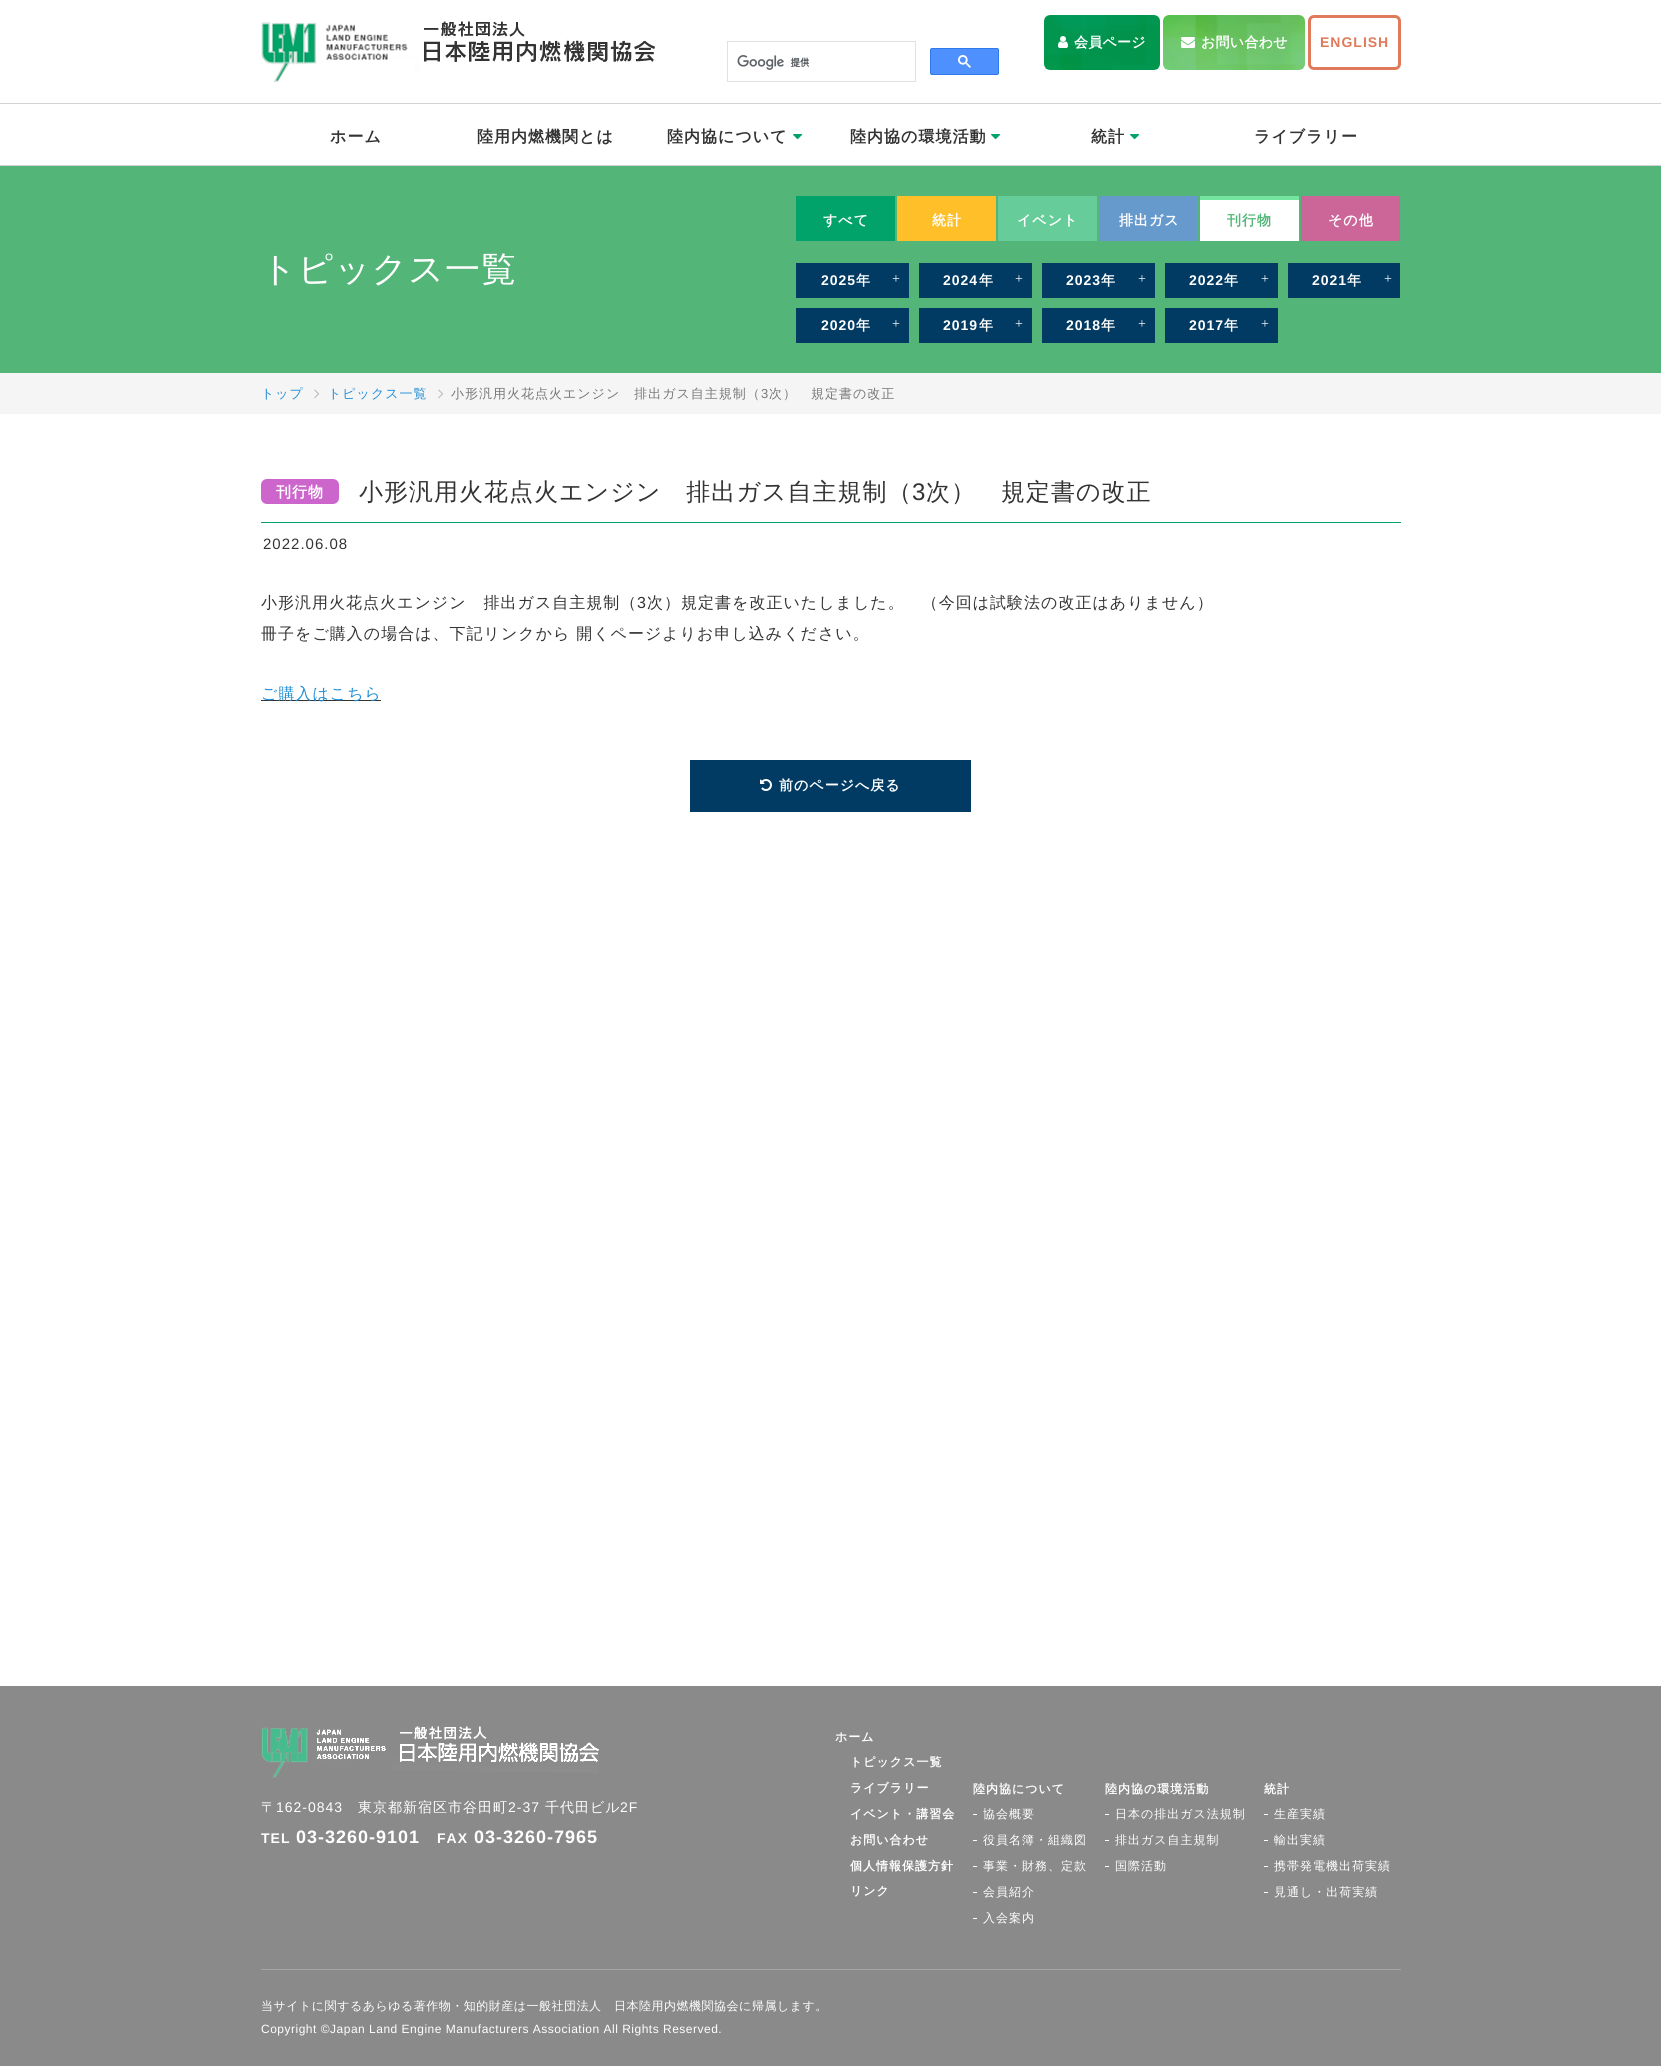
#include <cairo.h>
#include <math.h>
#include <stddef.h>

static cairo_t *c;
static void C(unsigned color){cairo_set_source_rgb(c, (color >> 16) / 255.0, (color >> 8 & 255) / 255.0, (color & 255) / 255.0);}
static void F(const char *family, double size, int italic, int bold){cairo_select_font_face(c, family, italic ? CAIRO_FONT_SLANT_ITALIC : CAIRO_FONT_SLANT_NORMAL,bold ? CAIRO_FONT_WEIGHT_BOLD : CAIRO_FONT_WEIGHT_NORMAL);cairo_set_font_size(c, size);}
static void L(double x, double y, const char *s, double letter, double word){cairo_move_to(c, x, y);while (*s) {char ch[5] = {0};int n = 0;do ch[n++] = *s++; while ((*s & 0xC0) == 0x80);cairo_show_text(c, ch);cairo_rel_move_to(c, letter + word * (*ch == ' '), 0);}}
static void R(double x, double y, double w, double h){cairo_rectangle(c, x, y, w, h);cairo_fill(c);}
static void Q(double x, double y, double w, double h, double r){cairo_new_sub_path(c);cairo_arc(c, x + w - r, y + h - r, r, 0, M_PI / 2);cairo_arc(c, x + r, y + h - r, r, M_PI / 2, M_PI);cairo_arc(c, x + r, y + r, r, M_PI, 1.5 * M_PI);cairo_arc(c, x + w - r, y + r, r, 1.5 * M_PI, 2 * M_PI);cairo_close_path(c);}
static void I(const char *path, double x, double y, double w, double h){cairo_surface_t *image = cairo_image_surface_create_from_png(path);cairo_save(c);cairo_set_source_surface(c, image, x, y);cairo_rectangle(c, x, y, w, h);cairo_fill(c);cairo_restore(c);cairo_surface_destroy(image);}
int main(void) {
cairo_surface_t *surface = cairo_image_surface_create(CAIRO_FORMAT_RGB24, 1661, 2066);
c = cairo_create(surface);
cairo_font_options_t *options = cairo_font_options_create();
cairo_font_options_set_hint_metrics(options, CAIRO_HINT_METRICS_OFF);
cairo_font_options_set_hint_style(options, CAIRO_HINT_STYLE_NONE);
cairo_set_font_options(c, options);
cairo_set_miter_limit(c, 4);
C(0xffffff);
cairo_paint(c);
I("1.png",261,21,394,61);
cairo_rectangle(c,727.5,41.5,188,40);
C(0xdfe1e5);
cairo_set_line_width(c,1);
cairo_stroke(c);
I("2.png",737,55,73,15);
C(0x4d90fe);
Q(930.5,48.5,68,26,1.5);
cairo_fill_preserve(c);
C(0x3079ed);
cairo_stroke(c);
I("3.png",958,55,13,13);
I("4.png",1044,15,116,55);
I("5.png",1058,36,10,12);
F("WenQuanYi Zen Hei",14,0,1);
C(0xffffff);
L(1074,47,"会員ページ",.25,0);
I("6.png",1163,15,142,55);
I("7.png",1181,37,14,11);
L(1201,47,"お問い合わせ",.25,0);
Q(1309.5,16.5,90,52,4.5);
C(0xdf7a5b);
cairo_set_line_width(c,3);
cairo_stroke(c);
F("Liberation Sans",14,0,1);
L(1320,47,"ENGLISH",1,0);
C(0xd2d2d2);
R(0,103,1661,1);
R(0,165,1661,1);
F("WenQuanYi Zen Hei",16,0,1);
C(0x333333);
L(330,142,"ホーム",1,0);
L(477,142,"陸用内燃機関とは",1,0);
L(667,142,"陸内協について",1,0);
I("8.png",793,134,10,6);
L(850,142,"陸内協の環境活動",1,0);
I("8.png",991,134,10,6);
L(1091,142,"統計",1,0);
I("8.png",1130,134,10,6);
L(1254,142,"ライブラリー",1,0);
C(0x53b578);
R(0,166,1661,207);
F("WenQuanYi Zen Hei Medium",35,0,0);
C(0xffffff);
L(261,281,"トピックス一覧",1,0);
C(0x01a36a);
R(796,196,99,45);
F("WenQuanYi Zen Hei",14,0,1);
C(0xffffff);
L(823,225,"すべて",1,0);
C(0xfebf28);
R(897,196,99,45);
C(0xffffff);
L(932,225,"統計",1,0);
C(0x66cc99);
R(998,196,99,45);
C(0xffffff);
L(1017,225,"イベント",1,0);
C(0x6699cc);
R(1099,196,99,45);
C(0xffffff);
L(1119,225,"排出ガス",1,0);
R(1200,200,99,41);
C(0x74e59f);
R(1200,196,99,4);
C(0x53b578);
L(1227,225,"刊行物",1,0);
C(0xcc6699);
R(1301,196,99,45);
C(0xffffff);
L(1328,225,"その他",1,0);
C(0x013b63);
R(796,263,113,35);
F("Liberation Sans",14,0,1);
C(0xffffff);
L(821,285,"2025",1,0);
F("WenQuanYi Zen Hei",14,0,1);
L(856,285,"年",1,0);
F("Liberation Serif",14,0,0);
L(892,283,"+",1,0);
C(0x013b63);
R(919,263,113,35);
F("Liberation Sans",14,0,1);
C(0xffffff);
L(943,285,"2024",1,0);
F("WenQuanYi Zen Hei",14,0,1);
L(979,285,"年",1,0);
F("Liberation Serif",14,0,0);
L(1015,283,"+",1,0);
C(0x013b63);
R(1042,263,113,35);
F("Liberation Sans",14,0,1);
C(0xffffff);
L(1066,285,"2023",1,0);
F("WenQuanYi Zen Hei",14,0,1);
L(1101,285,"年",1,0);
F("Liberation Serif",14,0,0);
L(1138,283,"+",1,0);
C(0x013b63);
R(1165,263,113,35);
F("Liberation Sans",14,0,1);
C(0xffffff);
L(1189,285,"2022",1,0);
F("WenQuanYi Zen Hei",14,0,1);
L(1224,285,"年",1,0);
F("Liberation Serif",14,0,0);
L(1261,283,"+",1,0);
C(0x013b63);
R(1288,263,112,35);
F("Liberation Sans",14,0,1);
C(0xffffff);
L(1312,285,"2021",1,0);
F("WenQuanYi Zen Hei",14,0,1);
L(1347,285,"年",1,0);
F("Liberation Serif",14,0,0);
L(1384,283,"+",1,0);
C(0x013b63);
R(796,308,113,35);
F("Liberation Sans",14,0,1);
C(0xffffff);
L(821,330,"2020",1,0);
F("WenQuanYi Zen Hei",14,0,1);
L(856,330,"年",1,0);
F("Liberation Serif",14,0,0);
L(892,328,"+",1,0);
C(0x013b63);
R(919,308,113,35);
F("Liberation Sans",14,0,1);
C(0xffffff);
L(943,330,"2019",1,0);
F("WenQuanYi Zen Hei",14,0,1);
L(979,330,"年",1,0);
F("Liberation Serif",14,0,0);
L(1015,328,"+",1,0);
C(0x013b63);
R(1042,308,113,35);
F("Liberation Sans",14,0,1);
C(0xffffff);
L(1066,330,"2018",1,0);
F("WenQuanYi Zen Hei",14,0,1);
L(1101,330,"年",1,0);
F("Liberation Serif",14,0,0);
L(1138,328,"+",1,0);
C(0x013b63);
R(1165,308,113,35);
F("Liberation Sans",14,0,1);
C(0xffffff);
L(1189,330,"2017",1,0);
F("WenQuanYi Zen Hei",14,0,1);
L(1224,330,"年",1,0);
F("Liberation Serif",14,0,0);
L(1261,328,"+",1,0);
C(0xf5f5f5);
R(0,373,1661,41);
F("WenQuanYi Zen Hei Medium",13,0,0);
C(0x238ed5);
L(261,398,"トップ",1,0);
I("9.png",314,389,6,10);
L(328,398,"トピックス一覧",1,0);
I("9.png",438,389,6,10);
C(0x777777);
L(451,398,"小形汎用火花点火エンジン　排出ガス自主規制（",1,0);
F("Liberation Sans",13,0,0);
L(761,398,"3",1,0);
F("WenQuanYi Zen Hei Medium",13,0,0);
L(769,398,"次）　規定書の改正",1,0);
C(0x01a36a);
R(261,522,1140,1);
C(0xcc66cc);
Q(261,479,78,25,6);
cairo_fill(c);
F("WenQuanYi Zen Hei",15,0,1);
C(0xffffff);
L(276,497,"刊行物",1,0);
F("WenQuanYi Zen Hei Medium",24,0,0);
C(0x333333);
L(359,500,"小形汎用火花点火エンジン　排出ガス自主規制（",1,0);
F("Liberation Sans",24,0,0);
L(912,500,"3",1,0);
F("WenQuanYi Zen Hei Medium",24,0,0);
L(926,500,"次）　規定書の改正",1,0);
F("Liberation Sans",15,0,0);
L(263,549,"2022.06.08",1,0);
F("WenQuanYi Zen Hei Medium",16,0,0);
L(261,608,"小形汎用火花点火エンジン　排出ガス自主規制（",1,0);
F("Liberation Sans",16,0,0);
L(637,608,"3",1,0);
F("WenQuanYi Zen Hei Medium",16,0,0);
L(647,608,"次）規定書を改正いたしました。　（今回は試験法の改正はありません）",1,0);
L(261,639,"冊子をご購入の場合は、下記リンクから 開くページよりお申し込みください。",1,0);
R(261,700,120,1);
C(0x238ed5);
L(261,699,"ご購入はこちら",1,0);
C(0x013b63);
R(690,760,281,52);
I("10.png",760,779,12,12);
F("WenQuanYi Zen Hei",14,0,1);
C(0xffffff);
L(779,790,"前のページへ戻る",1,0);
C(0x8a8a8a);
R(0,1686,1661,380);
C(0xa2a5a0);
R(261,1969,1140,1);
I("11.png",261,1726,338,52);
F("WenQuanYi Zen Hei Medium",14,0,0);
C(0xffffff);
L(261,1812,"〒",1,0);
F("Liberation Sans",14,0,0);
L(276,1812,"162-0843",1,0);
F("WenQuanYi Zen Hei Medium",14,0,0);
L(358,1812,"東京都新宿区市谷田町",1,0);
F("Liberation Sans",14,0,0);
L(508,1812,"2-37",1,0);
F("WenQuanYi Zen Hei Medium",14,0,0);
L(545,1812,"千代田ビル",1,0);
F("Liberation Sans",14,0,0);
L(620,1812,"2F",1,0);
F("Liberation Sans",14,0,1);
L(261,1843,"TEL",1,0);
F("Liberation Sans",18,0,1);
L(296,1843,"03-3260-9101",1,0);
F("Liberation Sans",14,0,1);
L(437,1843,"FAX",1,0);
F("Liberation Sans",18,0,1);
L(474,1843,"03-3260-7965",1,0);
F("WenQuanYi Zen Hei",12,0,1);
L(835,1741,"ホーム",1,0);
L(850,1766,"トピックス一覧",1,0);
L(850,1792,"ライブラリー",1,0);
L(850,1818,"イベント・講習会",1,0);
L(850,1844,"お問い合わせ",1,0);
L(850,1870,"個人情報保護方針",1,0);
L(850,1895,"リンク",1,0);
L(973,1793,"陸内協について",1,0);
R(973,1814,4,1);
F("WenQuanYi Zen Hei Medium",12,0,0);
L(983,1818,"協会概要",1,0);
R(973,1840,4,1);
L(983,1844,"役員名簿・組織図",1,0);
R(973,1866,4,1);
L(983,1870,"事業・財務、定款",1,0);
R(973,1892,4,1);
L(983,1896,"会員紹介",1,0);
R(973,1918,4,1);
L(983,1922,"入会案内",1,0);
F("WenQuanYi Zen Hei",12,0,1);
L(1105,1793,"陸内協の環境活動",1,0);
R(1105,1814,4,1);
F("WenQuanYi Zen Hei Medium",12,0,0);
L(1115,1818,"日本の排出ガス法規制",1,0);
R(1105,1840,4,1);
L(1115,1844,"排出ガス自主規制",1,0);
R(1105,1866,4,1);
L(1115,1870,"国際活動",1,0);
F("WenQuanYi Zen Hei",12,0,1);
L(1264,1793,"統計",1,0);
R(1264,1814,4,1);
F("WenQuanYi Zen Hei Medium",12,0,0);
L(1274,1818,"生産実績",1,0);
R(1264,1840,4,1);
L(1274,1844,"輸出実績",1,0);
R(1264,1866,4,1);
L(1274,1870,"携帯発電機出荷実績",1,0);
R(1264,1892,4,1);
L(1274,1896,"見通し・出荷実績",1,0);
L(261,2010,"当サイトに関するあらゆる著作物・知的財産は一般社団法人　日本陸用内燃機関協会に帰属します。",.5,0);
F("Liberation Sans",12,0,0);
L(261,2033,"Copyright ©Japan Land Engine Manufacturers Association All Rights Reserved.",.5,0);
cairo_surface_write_to_png(surface, "o.png");
cairo_font_options_destroy(options);
cairo_destroy(c);
cairo_surface_destroy(surface);
return 0;
}
